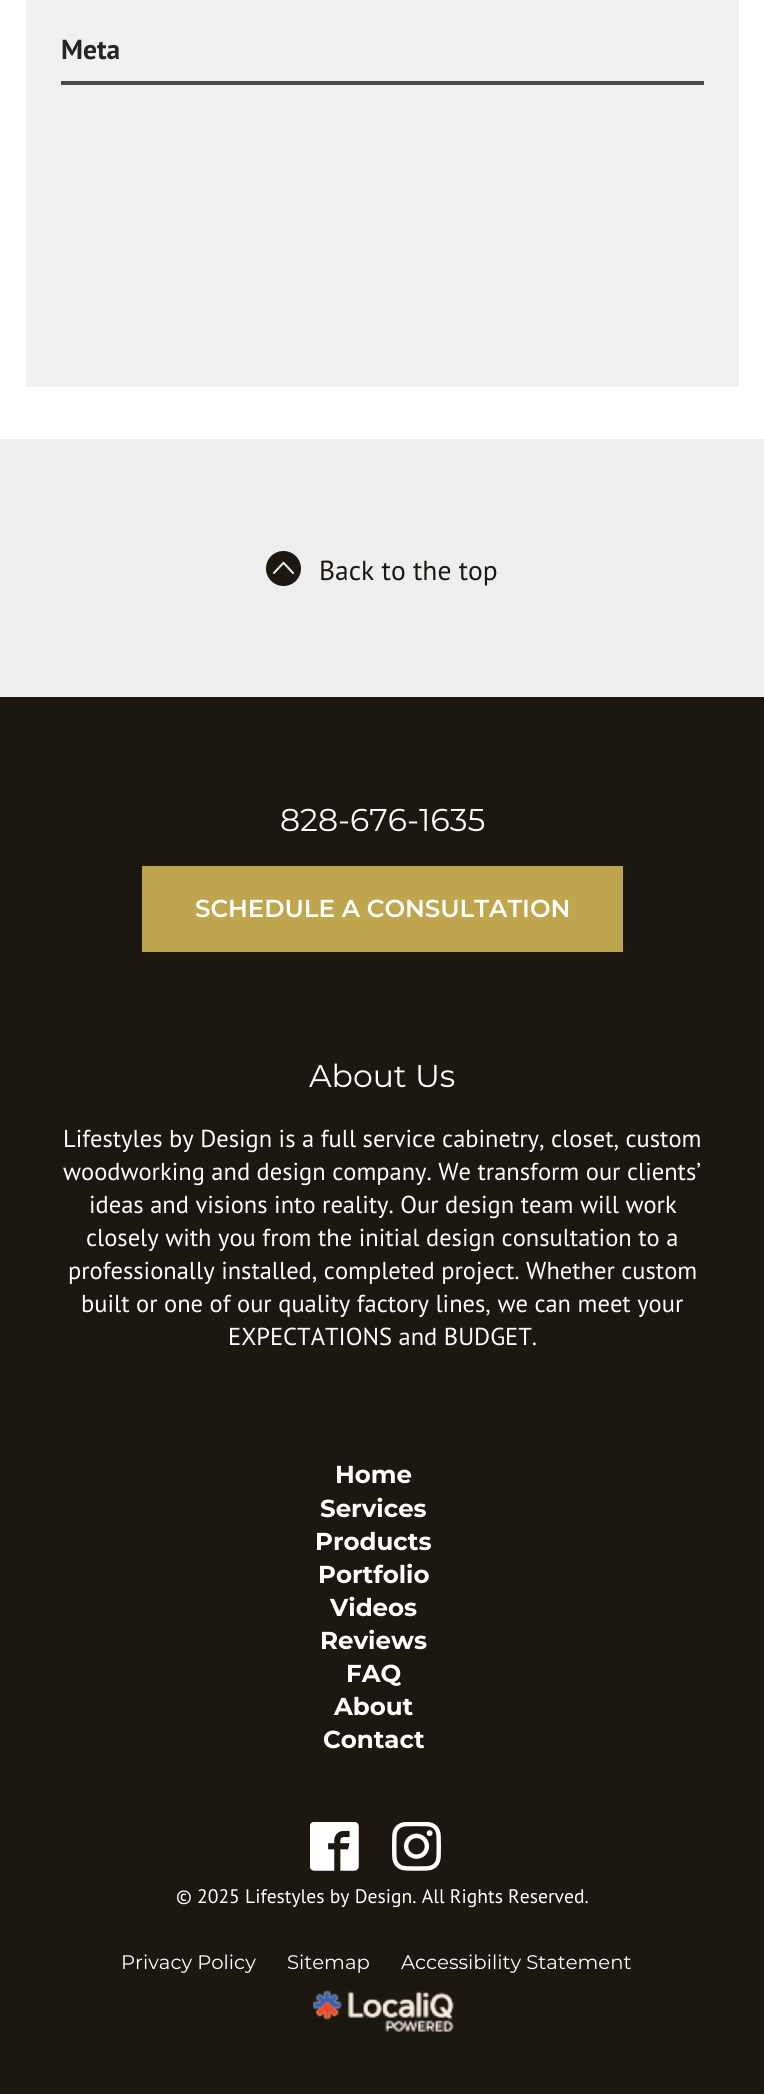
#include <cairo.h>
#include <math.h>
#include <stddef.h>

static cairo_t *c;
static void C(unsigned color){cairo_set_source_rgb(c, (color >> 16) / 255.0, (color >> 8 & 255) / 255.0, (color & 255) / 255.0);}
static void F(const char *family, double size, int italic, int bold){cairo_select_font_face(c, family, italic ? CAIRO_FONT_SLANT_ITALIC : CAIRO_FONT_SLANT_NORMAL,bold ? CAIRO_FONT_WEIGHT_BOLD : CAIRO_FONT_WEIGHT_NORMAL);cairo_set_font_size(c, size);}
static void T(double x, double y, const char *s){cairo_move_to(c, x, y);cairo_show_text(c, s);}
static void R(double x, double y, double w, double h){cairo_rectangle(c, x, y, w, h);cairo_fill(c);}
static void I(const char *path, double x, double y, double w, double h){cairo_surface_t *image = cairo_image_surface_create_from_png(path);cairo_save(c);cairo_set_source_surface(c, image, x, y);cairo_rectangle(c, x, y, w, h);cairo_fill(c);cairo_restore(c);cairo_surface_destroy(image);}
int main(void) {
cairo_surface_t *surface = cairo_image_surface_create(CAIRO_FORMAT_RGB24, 764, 2094);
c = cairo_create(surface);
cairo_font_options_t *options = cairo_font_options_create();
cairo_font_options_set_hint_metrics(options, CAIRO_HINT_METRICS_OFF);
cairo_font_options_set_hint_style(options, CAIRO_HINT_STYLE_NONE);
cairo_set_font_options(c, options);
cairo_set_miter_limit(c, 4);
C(0xffffff);
cairo_paint(c);
C(0xf1f1f1);
R(26,0,713,387);
C(0x494949);
R(61,81,643,4);
F("PT Sans",27.5,0,1);
C(0x252525);
T(61,59,"Meta");
C(0xeeeeee);
R(0,439,764,258);
C(0x1d1711);
cairo_new_path(c);
cairo_arc(c,283.5,568.5,17.5,0,2 * M_PI);
cairo_fill(c);
I("1.png",273,561,21,13);
F("PT Sans",27.5,0,0);
T(319,580,"Back to the top");
R(0,697,764,1397);
F("Montserrat",31.5,0,0);
C(0xffffff);
T(280,831,"828-676-1635");
C(0xbfa54d);
R(142,866,481,86);
F("Montserrat SemiBold",24.5,0,0);
C(0xffffff);
T(195,917,"SCHEDULE A CONSULTATION");
F("Montserrat",31.5,0,0);
T(309,1087,"About Us");
F("PT Sans",24.5,0,0);
T(63,1147,"Lifestyles by Design is a full service cabinetry, closet, custom");
T(63,1180,"woodworking and design company. We transform our clients’");
T(89,1213,"ideas and visions into reality. Our design team will work");
T(86,1246,"closely with you from the initial design consultation to a");
T(68,1279,"professionally installed, completed project. Whether custom");
T(81,1312,"built or one of our quality factory lines, we can meet your");
T(228,1345,"EXPECTATIONS and BUDGET.");
F("Montserrat",24.5,0,1);
T(335,1483,"Home");
T(320,1517,"Services");
T(315,1550,"Products");
T(318,1583,"Portfolio");
T(330,1616,"Videos");
T(320,1649,"Reviews");
T(346,1682,"FAQ");
T(334,1715,"About");
T(323,1748,"Contact");
I("2.png",310,1822,49,49);
I("3.png",392,1822,49,49);
F("PT Sans",19.6,0,0);
T(176,1903,"© 2025 Lifestyles by Design. All Rights Reserved.");
F("Montserrat",19.6,0,0);
T(121,1969,"Privacy Policy");
T(287,1969,"Sitemap");
T(401,1969,"Accessibility Statement");
I("4.png",313,1990,141,42);
cairo_surface_write_to_png(surface, "o.png");
cairo_font_options_destroy(options);
cairo_destroy(c);
cairo_surface_destroy(surface);
return 0;
}
